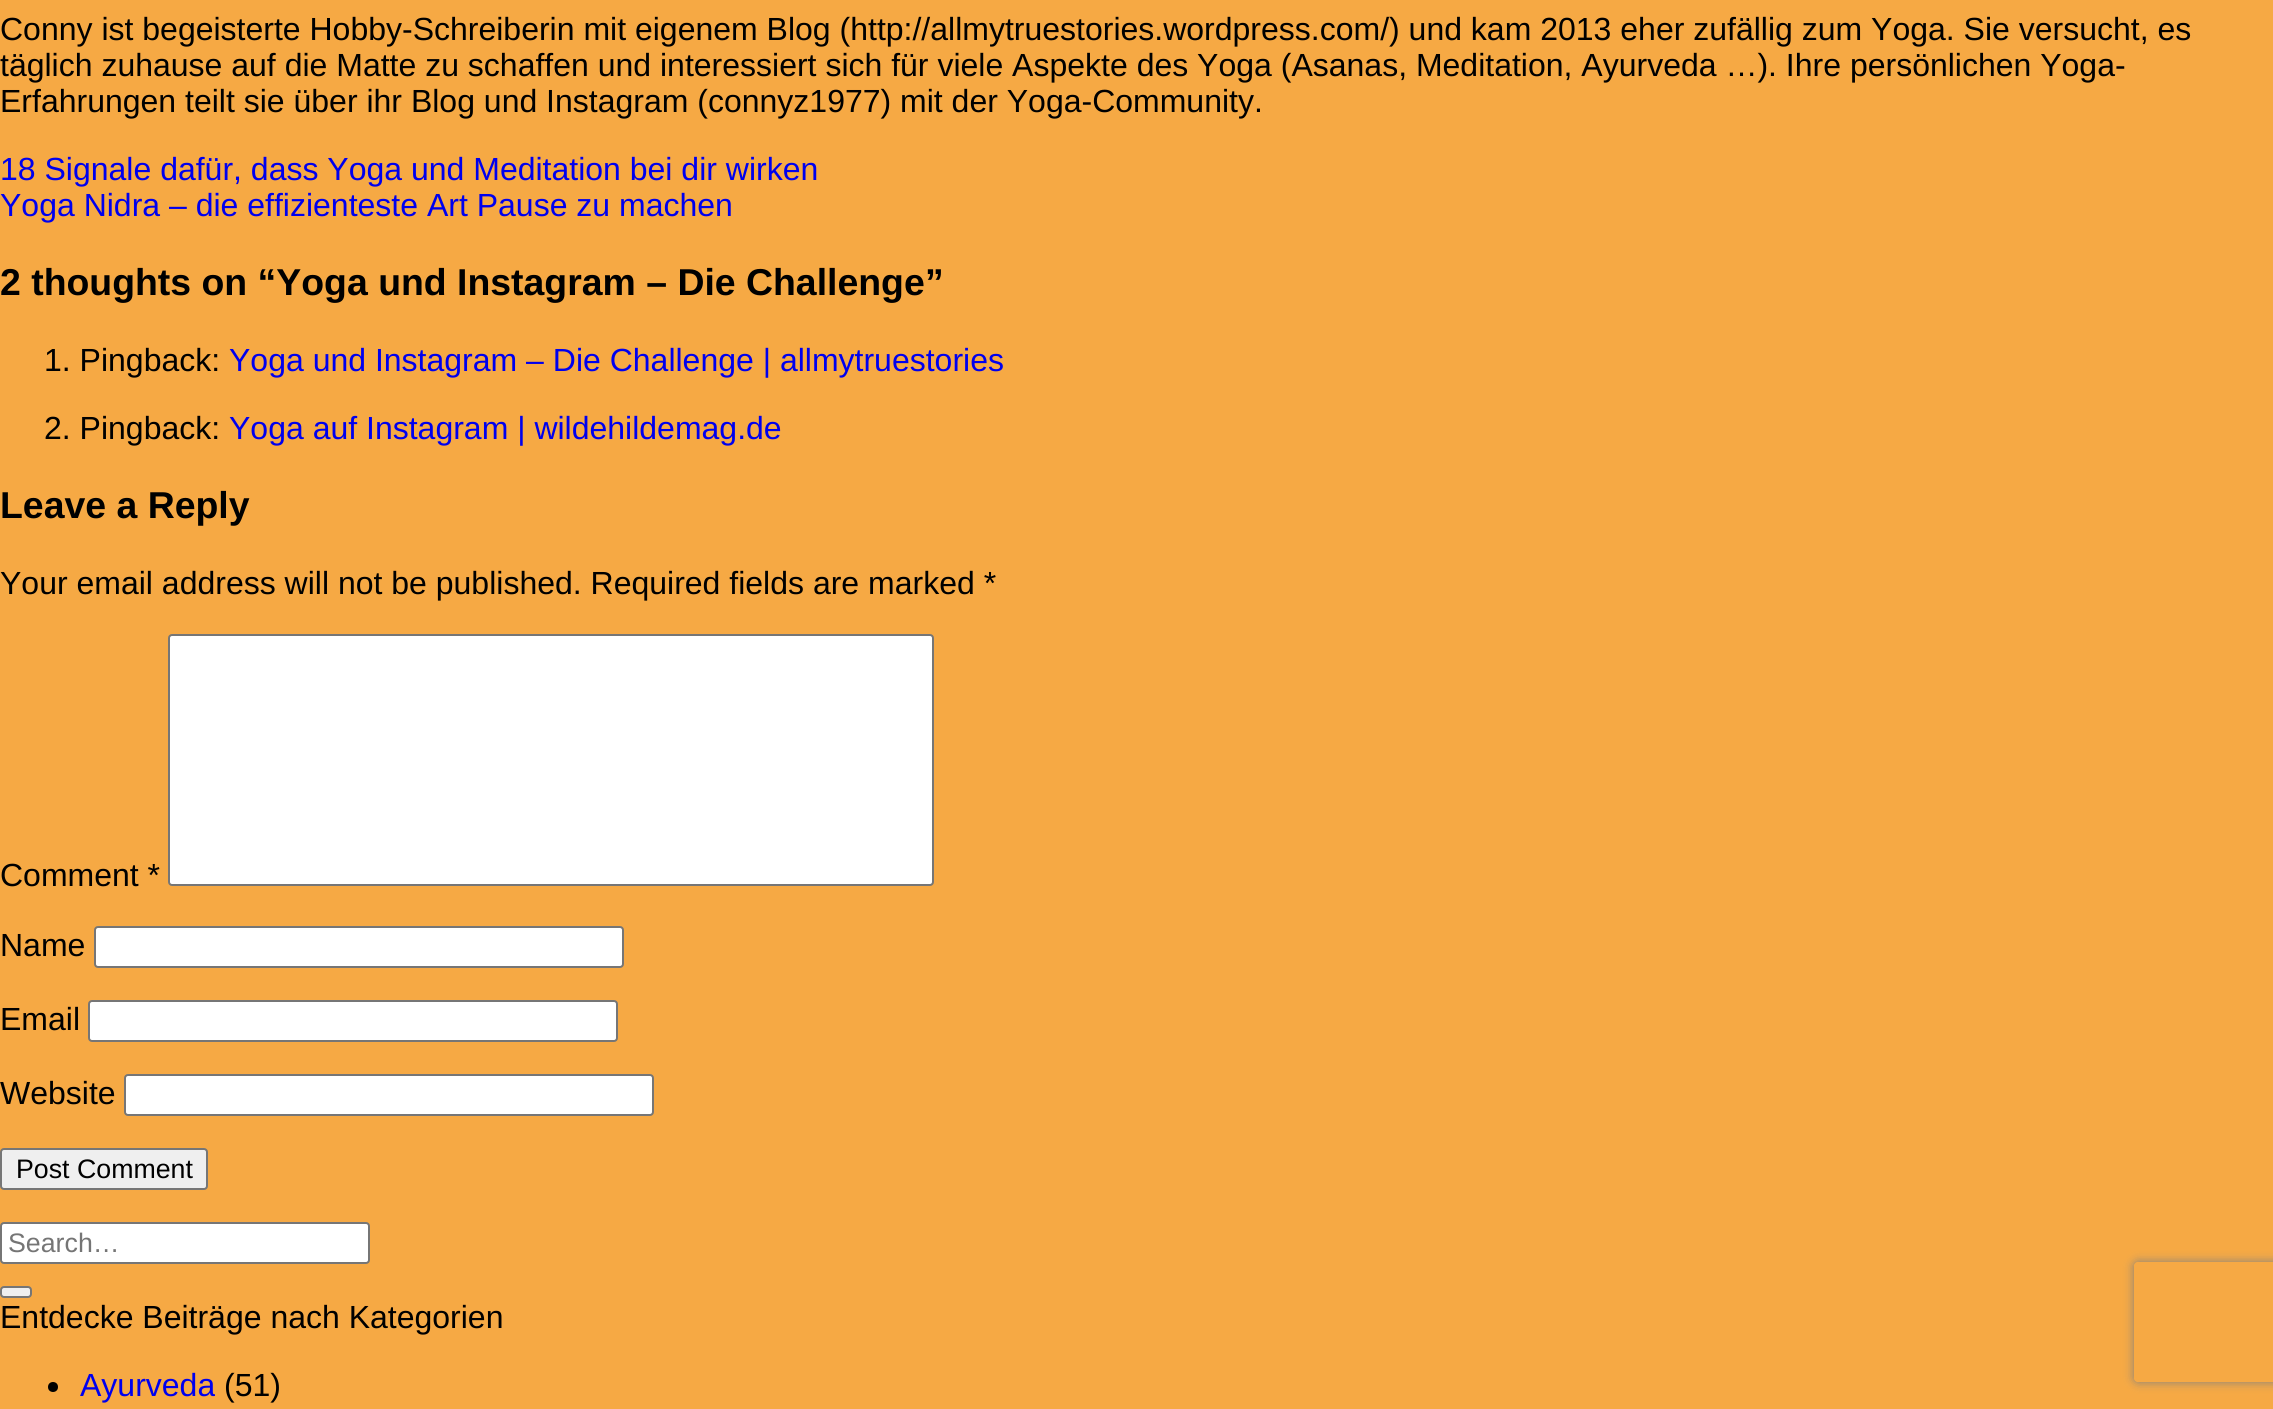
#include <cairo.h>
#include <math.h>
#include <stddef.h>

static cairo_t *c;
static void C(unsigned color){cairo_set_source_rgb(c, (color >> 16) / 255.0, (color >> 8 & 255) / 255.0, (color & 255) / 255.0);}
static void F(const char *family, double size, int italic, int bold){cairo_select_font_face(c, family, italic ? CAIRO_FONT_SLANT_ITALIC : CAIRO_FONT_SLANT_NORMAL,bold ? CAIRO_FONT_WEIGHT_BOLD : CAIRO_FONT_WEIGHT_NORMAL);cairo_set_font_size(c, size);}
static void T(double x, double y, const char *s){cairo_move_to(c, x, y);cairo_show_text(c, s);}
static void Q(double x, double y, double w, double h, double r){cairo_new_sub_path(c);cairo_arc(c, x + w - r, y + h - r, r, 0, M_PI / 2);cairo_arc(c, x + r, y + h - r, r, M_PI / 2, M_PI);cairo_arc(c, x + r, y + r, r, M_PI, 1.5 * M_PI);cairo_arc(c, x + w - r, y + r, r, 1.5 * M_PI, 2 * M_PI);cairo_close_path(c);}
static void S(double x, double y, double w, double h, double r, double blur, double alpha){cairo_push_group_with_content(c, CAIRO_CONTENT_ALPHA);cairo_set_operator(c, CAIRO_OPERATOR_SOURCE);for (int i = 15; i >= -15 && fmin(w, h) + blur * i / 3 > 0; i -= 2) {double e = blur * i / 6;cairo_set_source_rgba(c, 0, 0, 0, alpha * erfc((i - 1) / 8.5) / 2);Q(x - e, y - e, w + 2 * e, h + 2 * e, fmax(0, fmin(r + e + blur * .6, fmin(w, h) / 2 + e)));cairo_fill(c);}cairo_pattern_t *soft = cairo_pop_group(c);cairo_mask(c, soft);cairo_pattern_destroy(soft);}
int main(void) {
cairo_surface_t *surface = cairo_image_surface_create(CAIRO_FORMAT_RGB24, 2273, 1409);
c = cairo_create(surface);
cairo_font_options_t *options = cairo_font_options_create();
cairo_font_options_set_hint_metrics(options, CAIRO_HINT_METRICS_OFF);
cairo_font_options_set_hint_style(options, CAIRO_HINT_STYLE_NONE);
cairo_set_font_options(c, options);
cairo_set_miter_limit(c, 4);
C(0xf6a944);
cairo_paint(c);
F("Liberation Sans",32,0,0);
C(0x000000);
T(0,40,"Conny ist begeisterte Hobby-Schreiberin mit eigenem Blog (http://allmytruestories.wordpress.com/) und kam 2013 eher zufällig zum Yoga. Sie versucht, es");
T(0,76,"täglich zuhause auf die Matte zu schaffen und interessiert sich für viele Aspekte des Yoga (Asanas, Meditation, Ayurveda …). Ihre persönlichen Yoga-");
T(0,112,"Erfahrungen teilt sie über ihr Blog und Instagram (connyz1977) mit der Yoga-Community.");
C(0x0000ee);
T(0,180,"18 Signale dafür, dass Yoga und Meditation bei dir wirken");
T(0,216,"Yoga Nidra – die effizienteste Art Pause zu machen");
F("Liberation Sans",37.4,0,1);
C(0x000000);
T(0,295,"2 thoughts on “Yoga und Instagram – Die Challenge");
T(925,295,"”");
F("Liberation Sans",32,0,0);
T(44,371,"1. Pingback:");
C(0x0000ee);
T(229,371,"Yoga und Instagram – Die Challenge | allmytruestories");
C(0x000000);
T(44,439,"2. Pingback:");
C(0x0000ee);
T(229,439,"Yoga auf Instagram | wildehildemag.de");
F("Liberation Sans",37.4,0,1);
C(0x000000);
T(0,518,"Leave a Reply");
F("Liberation Sans",32,0,0);
T(0,594,"Your email address will not be published. Required fields are marked *");
T(0,886,"Comment *");
C(0xffffff);
Q(169,635,764,250,3);
cairo_fill_preserve(c);
C(0x767676);
cairo_stroke(c);
C(0x000000);
T(0,956,"Name");
C(0xffffff);
Q(95,927,528,40,3);
cairo_fill_preserve(c);
C(0x767676);
cairo_stroke(c);
C(0x000000);
T(0,1030,"Email");
C(0xffffff);
Q(89,1001,528,40,3);
cairo_fill_preserve(c);
C(0x767676);
cairo_stroke(c);
C(0x000000);
T(0,1104,"Website");
C(0xffffff);
Q(125,1075,528,40,3);
cairo_fill_preserve(c);
C(0x767676);
cairo_stroke(c);
C(0xefefef);
Q(1,1149,206,40,3);
cairo_fill_preserve(c);
C(0x767676);
cairo_stroke(c);
F("Liberation Sans",26.75,0,0);
C(0x000000);
T(16,1178,"Post Comment");
C(0xffffff);
Q(1,1223,368,40,3);
cairo_fill_preserve(c);
C(0x767676);
cairo_stroke(c);
C(0x757575);
T(8,1252,"Search…");
C(0xefefef);
Q(1,1287,30,10,3);
cairo_fill_preserve(c);
C(0x767676);
cairo_stroke(c);
F("Liberation Sans",32,0,0);
C(0x000000);
T(0,1328,"Entdecke Beiträge nach Kategorien");
cairo_new_path(c);
cairo_arc(c,53,1387,5,0,2 * M_PI);
cairo_fill(c);
C(0x0000ee);
T(80,1396,"Ayurveda");
C(0x000000);
T(224,1396,"(51)");
cairo_save(c);
cairo_set_fill_rule(c,CAIRO_FILL_RULE_EVEN_ODD);
cairo_new_path(c);
cairo_move_to(c,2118,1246);
cairo_line_to(c,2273,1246);
cairo_line_to(c,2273,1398);
cairo_line_to(c,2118,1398);
cairo_close_path(c);
cairo_move_to(c,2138,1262);
cairo_line_to(c,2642,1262);
cairo_curve_to(c,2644,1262,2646,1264,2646,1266);
cairo_line_to(c,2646,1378);
cairo_curve_to(c,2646,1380,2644,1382,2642,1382);
cairo_line_to(c,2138,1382);
cairo_curve_to(c,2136,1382,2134,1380,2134,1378);
cairo_line_to(c,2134,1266);
cairo_curve_to(c,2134,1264,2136,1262,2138,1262);
cairo_close_path(c);
cairo_clip(c);
C(0x808080);
S(2134,1262,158,120,4,5,1);
cairo_restore(c);
cairo_surface_write_to_png(surface, "o.png");
cairo_font_options_destroy(options);
cairo_destroy(c);
cairo_surface_destroy(surface);
return 0;
}
